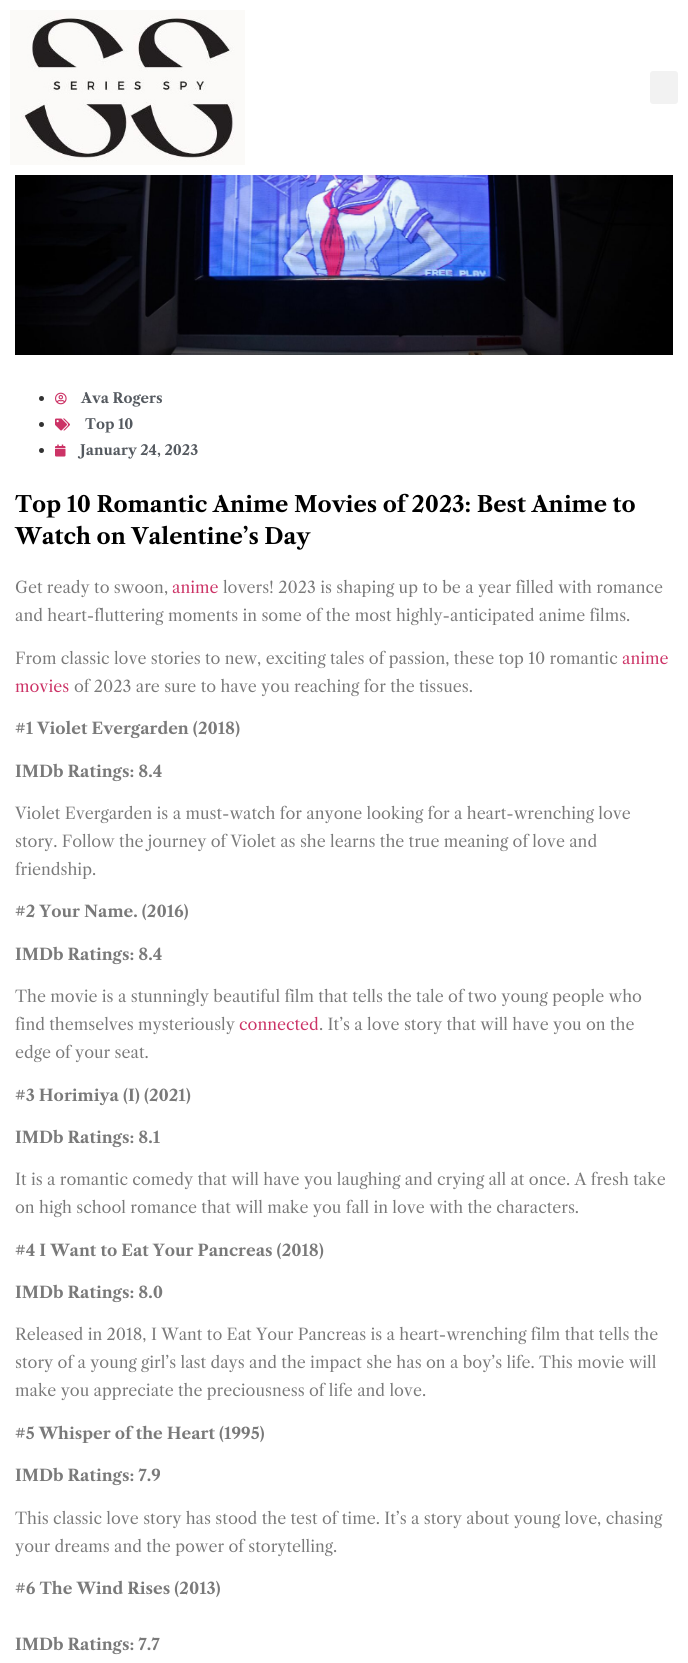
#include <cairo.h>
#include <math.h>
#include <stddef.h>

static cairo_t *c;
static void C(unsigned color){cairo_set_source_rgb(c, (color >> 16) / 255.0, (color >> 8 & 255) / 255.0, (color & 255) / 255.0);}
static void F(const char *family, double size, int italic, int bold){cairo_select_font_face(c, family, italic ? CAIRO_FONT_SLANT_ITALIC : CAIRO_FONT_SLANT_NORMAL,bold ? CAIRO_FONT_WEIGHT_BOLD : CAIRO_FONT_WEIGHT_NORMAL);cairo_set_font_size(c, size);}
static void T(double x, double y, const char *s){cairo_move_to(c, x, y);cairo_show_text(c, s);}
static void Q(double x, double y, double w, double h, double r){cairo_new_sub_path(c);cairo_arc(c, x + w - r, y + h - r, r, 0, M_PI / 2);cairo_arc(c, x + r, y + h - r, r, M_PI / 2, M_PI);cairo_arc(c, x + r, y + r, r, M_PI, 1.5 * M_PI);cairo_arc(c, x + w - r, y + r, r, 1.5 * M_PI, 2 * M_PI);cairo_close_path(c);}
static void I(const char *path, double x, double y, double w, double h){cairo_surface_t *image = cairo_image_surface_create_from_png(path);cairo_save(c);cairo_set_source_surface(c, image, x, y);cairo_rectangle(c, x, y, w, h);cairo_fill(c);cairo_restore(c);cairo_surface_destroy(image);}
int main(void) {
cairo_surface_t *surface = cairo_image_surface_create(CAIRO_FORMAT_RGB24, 688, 1663);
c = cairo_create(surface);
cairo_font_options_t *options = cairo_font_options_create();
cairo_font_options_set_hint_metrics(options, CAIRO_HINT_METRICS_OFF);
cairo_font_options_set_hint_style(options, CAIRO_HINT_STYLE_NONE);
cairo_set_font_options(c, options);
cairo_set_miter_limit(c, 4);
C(0xffffff);
cairo_paint(c);
I("1.png",10,10,235,155);
C(0xf2f2f2);
Q(650,71,28,33,3);
cairo_fill(c);
I("2.png",15,175,658,180);
C(0x333333);
cairo_arc(c,41.5,398.5,2.5,0,2 * M_PI);
cairo_fill(c);
I("3.png",55,392,12,13);
F("Libre Caslon Text",14,0,1);
C(0x54595f);
T(81,403,"Ava Rogers");
C(0x333333);
cairo_new_path(c);
cairo_arc(c,41.5,424.5,2.5,0,2 * M_PI);
cairo_fill(c);
I("4.png",55,418,15,13);
C(0x54595f);
T(85,429,"Top 10");
C(0x333333);
cairo_new_path(c);
cairo_arc(c,41.5,450.5,2.5,0,2 * M_PI);
cairo_fill(c);
I("5.png",55,444,11,13);
C(0x54595f);
T(80,455,"January 24, 2023");
F("Libre Caslon Text",22,0,1);
C(0x000000);
T(15,512,"Top 10 Romantic Anime Movies of 2023: Best Anime to");
T(15,544,"Watch on Valentine’s Day");
F("Libre Caslon Text",16,0,0);
C(0x7a7a7a);
T(15,593,"Get ready to swoon,");
C(0xcc3366);
T(172,593,"anime");
C(0x7a7a7a);
T(223,593,"lovers! 2023 is shaping up to be a year filled with romance");
T(15,621,"and heart-fluttering moments in some of the most highly-anticipated anime films.");
T(15,664,"From classic love stories to new, exciting tales of passion, these top 10 romantic");
C(0xcc3366);
T(622,664,"anime");
T(15,692,"movies");
C(0x7a7a7a);
T(74,692,"of 2023 are sure to have you reaching for the tissues.");
F("Libre Caslon Text",16,0,1);
T(15,734,"#1 Violet Evergarden (2018)");
T(15,777,"IMDb Ratings: 8.4");
F("Libre Caslon Text",16,0,0);
T(15,819,"Violet Evergarden is a must-watch for anyone looking for a heart-wrenching love");
T(15,847,"story. Follow the journey of Violet as she learns the true meaning of love and");
T(15,875,"friendship.");
F("Libre Caslon Text",16,0,1);
T(15,917,"#2 Your Name. (2016)");
T(15,960,"IMDb Ratings: 8.4");
F("Libre Caslon Text",16,0,0);
T(15,1002,"The movie is a stunningly beautiful film that tells the tale of two young people who");
T(15,1030,"find themselves mysteriously");
C(0xcc3366);
T(239,1030,"connected");
C(0x7a7a7a);
T(319,1030,". It’s a love story that will have you on the");
T(15,1058,"edge of your seat.");
F("Libre Caslon Text",16,0,1);
T(15,1101,"#3 Horimiya (I) (2021)");
T(15,1143,"IMDb Ratings: 8.1");
F("Libre Caslon Text",16,0,0);
T(15,1185,"It is a romantic comedy that will have you laughing and crying all at once. A fresh take");
T(15,1213,"on high school romance that will make you fall in love with the characters.");
F("Libre Caslon Text",16,0,1);
T(15,1256,"#4 I Want to Eat Your Pancreas (2018)");
T(15,1298,"IMDb Ratings: 8.0");
F("Libre Caslon Text",16,0,0);
T(15,1340,"Released in 2018, I Want to Eat Your Pancreas is a heart-wrenching film that tells the");
T(15,1368,"story of a young girl’s last days and the impact she has on a boy’s life. This movie will");
T(15,1396,"make you appreciate the preciousness of life and love.");
F("Libre Caslon Text",16,0,1);
T(15,1439,"#5 Whisper of the Heart (1995)");
T(15,1481,"IMDb Ratings: 7.9");
F("Libre Caslon Text",16,0,0);
T(15,1524,"This classic love story has stood the test of time. It’s a story about young love, chasing");
T(15,1552,"your dreams and the power of storytelling.");
F("Libre Caslon Text",16,0,1);
T(15,1594,"#6 The Wind Rises (2013)");
T(15,1650,"IMDb Ratings: 7.7");
cairo_surface_write_to_png(surface, "o.png");
cairo_font_options_destroy(options);
cairo_destroy(c);
cairo_surface_destroy(surface);
return 0;
}
